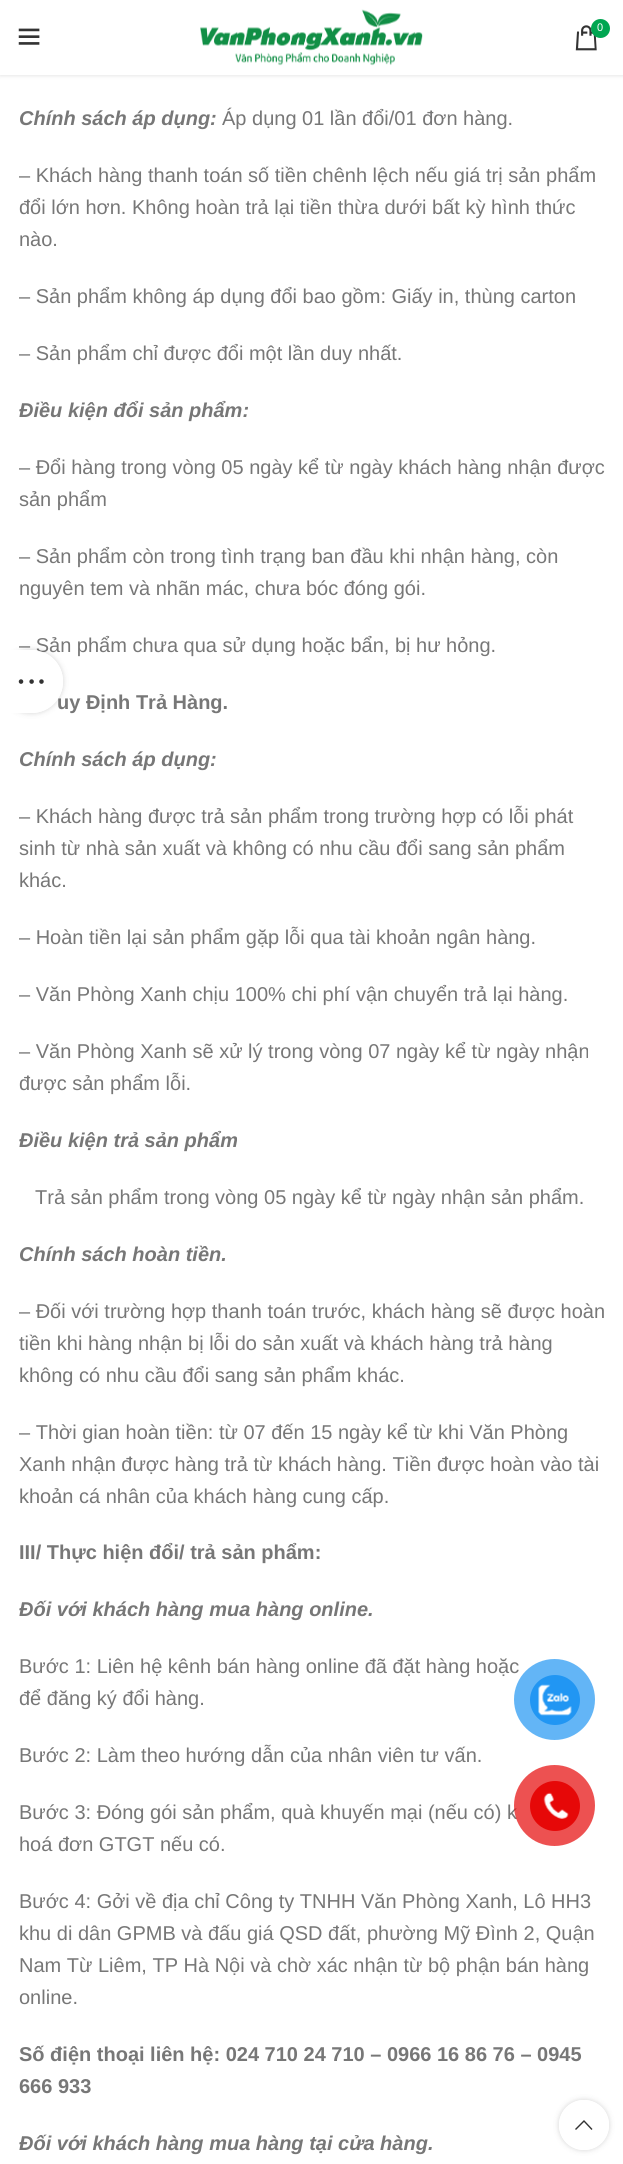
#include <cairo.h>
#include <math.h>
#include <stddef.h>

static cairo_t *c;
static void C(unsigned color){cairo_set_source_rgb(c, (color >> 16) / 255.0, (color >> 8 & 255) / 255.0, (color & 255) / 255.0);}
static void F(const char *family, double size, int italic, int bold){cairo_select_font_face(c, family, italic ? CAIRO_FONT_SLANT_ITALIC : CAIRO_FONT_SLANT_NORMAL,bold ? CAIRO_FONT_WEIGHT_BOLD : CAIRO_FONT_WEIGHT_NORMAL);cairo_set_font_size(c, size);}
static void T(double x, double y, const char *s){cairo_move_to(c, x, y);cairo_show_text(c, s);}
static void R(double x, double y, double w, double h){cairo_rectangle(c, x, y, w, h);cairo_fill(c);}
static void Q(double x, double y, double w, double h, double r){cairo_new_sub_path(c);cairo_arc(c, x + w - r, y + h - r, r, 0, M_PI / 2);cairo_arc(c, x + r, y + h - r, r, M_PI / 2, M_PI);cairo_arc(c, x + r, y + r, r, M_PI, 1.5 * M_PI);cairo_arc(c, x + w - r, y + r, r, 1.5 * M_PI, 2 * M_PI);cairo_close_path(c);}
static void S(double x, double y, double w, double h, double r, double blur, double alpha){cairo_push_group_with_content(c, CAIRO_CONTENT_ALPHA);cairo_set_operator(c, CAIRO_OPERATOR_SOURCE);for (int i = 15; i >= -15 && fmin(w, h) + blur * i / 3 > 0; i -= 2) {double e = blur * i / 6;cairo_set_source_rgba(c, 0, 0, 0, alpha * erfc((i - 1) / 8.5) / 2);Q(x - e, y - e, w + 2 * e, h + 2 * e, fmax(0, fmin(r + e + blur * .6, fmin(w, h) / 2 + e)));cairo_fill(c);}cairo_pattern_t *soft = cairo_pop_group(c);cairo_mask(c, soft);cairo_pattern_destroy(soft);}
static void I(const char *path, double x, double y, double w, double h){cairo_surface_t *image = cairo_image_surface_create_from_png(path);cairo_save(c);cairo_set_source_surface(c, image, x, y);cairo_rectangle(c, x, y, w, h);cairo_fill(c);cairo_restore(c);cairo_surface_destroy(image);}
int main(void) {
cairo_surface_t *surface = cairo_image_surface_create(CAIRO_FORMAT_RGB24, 623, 2164);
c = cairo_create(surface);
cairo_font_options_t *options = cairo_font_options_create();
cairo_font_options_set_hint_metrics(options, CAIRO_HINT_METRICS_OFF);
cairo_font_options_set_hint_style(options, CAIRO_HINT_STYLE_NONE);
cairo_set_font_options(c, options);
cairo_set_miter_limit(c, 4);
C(0xffffff);
cairo_paint(c);
C(0x000000);
S(0,1,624,75,0,2,.1);
C(0xffffff);
R(0,0,623,75);
I("1.png",18,28,22,17);
I("2.png",200,9,223,57);
I("3.png",575,25,22,26);
C(0x00a651);
cairo_arc(c,600.5,28.5,9.5,0,2 * M_PI);
cairo_fill(c);
F("Liberation Sans",11,0,0);
C(0xffffff);
T(597,31,"0");
F("Liberation Sans",20,1,1);
C(0x777777);
T(19,125,"Chính sách áp dụng:");
F("Liberation Sans",20,0,0);
T(222,125,"Áp dụng 01 lần đổi/01 đơn hàng.");
T(19,182,"– Khách hàng thanh toán số tiền chênh lệch nếu giá trị sản phẩm");
T(19,214,"đổi lớn hơn. Không hoàn trả lại tiền thừa dưới bất kỳ hình thức");
T(19,246,"nào.");
T(19,303,"– Sản phẩm không áp dụng đổi bao gồm: Giấy in, thùng carton");
T(19,360,"– Sản phẩm chỉ được đổi một lần duy nhất.");
F("Liberation Sans",20,1,1);
T(19,417,"Điều kiện đổi sản phẩm:");
F("Liberation Sans",20,0,0);
T(19,474,"– Đổi hàng trong vòng 05 ngày kể từ ngày khách hàng nhận được");
T(19,506,"sản phẩm");
T(19,563,"– Sản phẩm còn trong tình trạng ban đầu khi nhận hàng, còn");
T(19,595,"nguyên tem và nhãn mác, chưa bóc đóng gói.");
T(19,652,"– Sản phẩm chưa qua sử dụng hoặc bẩn, bị hư hỏng.");
F("Liberation Sans",20,0,1);
T(57,709,"uy Định Trả Hàng.");
F("Liberation Sans",20,1,1);
T(19,766,"Chính sách áp dụng:");
F("Liberation Sans",20,0,0);
T(19,823,"– Khách hàng được trả sản phẩm trong trường hợp có lỗi phát");
T(19,855,"sinh từ nhà sản xuất và không có nhu cầu đổi sang sản phẩm");
T(19,887,"khác.");
T(19,944,"– Hoàn tiền lại sản phẩm gặp lỗi qua tài khoản ngân hàng.");
T(19,1001,"– Văn Phòng Xanh chịu 100% chi phí vận chuyển trả lại hàng.");
T(19,1058,"– Văn Phòng Xanh sẽ xử lý trong vòng 07 ngày kể từ ngày nhận");
T(19,1090,"được sản phẩm lỗi.");
F("Liberation Sans",20,1,1);
T(19,1147,"Điều kiện trả sản phẩm");
F("Liberation Sans",20,0,0);
T(35,1204,"Trả sản phẩm trong vòng 05 ngày kể từ ngày nhận sản phẩm.");
F("Liberation Sans",20,1,1);
T(19,1261,"Chính sách hoàn tiền.");
F("Liberation Sans",20,0,0);
T(19,1318,"– Đối với trường hợp thanh toán trước, khách hàng sẽ được hoàn");
T(19,1350,"tiền khi hàng nhận bị lỗi do sản xuất và khách hàng trả hàng");
T(19,1382,"không có nhu cầu đổi sang sản phẩm khác.");
T(19,1439,"– Thời gian hoàn tiền: từ 07 đến 15 ngày kể từ khi Văn Phòng");
T(19,1471,"Xanh nhận được hàng trả từ khách hàng. Tiền được hoàn vào tài");
T(19,1503,"khoản cá nhân của khách hàng cung cấp.");
F("Liberation Sans",20,0,1);
T(19,1559,"III/ Thực hiện đổi/ trả sản phẩm:");
F("Liberation Sans",20,1,1);
T(19,1616,"Đối với khách hàng mua hàng online.");
F("Liberation Sans",20,0,0);
T(19,1673,"Bước 1: Liên hệ kênh bán hàng online đã đặt hàng hoặc");
T(19,1705,"để đăng ký đổi hàng.");
T(19,1762,"Bước 2: Làm theo hướng dẫn của nhân viên tư vấn.");
T(19,1819,"Bước 3: Đóng gói sản phẩm, quà khuyến mại (nếu có) k");
T(19,1851,"hoá đơn GTGT nếu có.");
T(19,1908,"Bước 4: Gởi về địa chỉ Công ty TNHH Văn Phòng Xanh, Lô HH3");
T(19,1940,"khu di dân GPMB và đấu giá QSD đất, phường Mỹ Đình 2, Quận");
T(19,1972,"Nam Từ Liêm, TP Hà Nội và chờ xác nhận từ bộ phận bán hàng");
T(19,2004,"online.");
F("Liberation Sans",20,0,1);
T(19,2061,"Số điện thoại liên hệ: 024 710 24 710 – 0966 16 86 76 – 0945");
T(19,2093,"666 933");
F("Liberation Sans",20,1,1);
T(19,2150,"Đối với khách hàng mua hàng tại cửa hàng.");
cairo_save(c);
cairo_set_fill_rule(c,CAIRO_FILL_RULE_EVEN_ODD);
cairo_new_path(c);
cairo_move_to(c,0,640);
cairo_line_to(c,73,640);
cairo_line_to(c,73,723);
cairo_line_to(c,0,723);
cairo_close_path(c);
cairo_move_to(c,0,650);
cairo_line_to(c,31.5,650);
cairo_curve_to(c,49,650,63,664,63,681.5);
cairo_curve_to(c,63,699,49,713,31.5,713);
cairo_line_to(c,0,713);
cairo_close_path(c);
cairo_clip(c);
C(0x000000);
S(0,650,63,63,31.5,3,.17);
cairo_restore(c);
cairo_set_source_rgba(c,1,1,1,0.9);
cairo_new_path(c);
cairo_move_to(c,0,650);
cairo_line_to(c,31.5,650);
cairo_curve_to(c,49,650,63,664,63,681.5);
cairo_curve_to(c,63,699,49,713,31.5,713);
cairo_line_to(c,0,713);
cairo_close_path(c);
cairo_fill(c);
I("4.png",18,679,26,5);
cairo_set_source_rgba(c,0.129,0.588,0.953,0.7);
cairo_arc(c,554.5,1699.5,40.5,0,2 * M_PI);
cairo_fill(c);
C(0x2196f3);
cairo_arc(c,555,1700,25,0,2 * M_PI);
cairo_fill(c);
I("5.png",538,1684,34,32);
cairo_set_source_rgba(c,0.902,0.031,0.031,0.7);
cairo_arc(c,554.5,1805.5,40.5,0,2 * M_PI);
cairo_fill(c);
C(0xe60808);
cairo_arc(c,555,1806,25,0,2 * M_PI);
cairo_fill(c);
I("6.png",543,1792,26,27);
cairo_save(c);
cairo_set_fill_rule(c,CAIRO_FILL_RULE_EVEN_ODD);
cairo_new_path(c);
cairo_move_to(c,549,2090);
cairo_line_to(c,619,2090);
cairo_line_to(c,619,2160);
cairo_line_to(c,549,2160);
cairo_close_path(c);
cairo_move_to(c,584,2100);
cairo_curve_to(c,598,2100,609,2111,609,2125);
cairo_curve_to(c,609,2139,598,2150,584,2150);
cairo_curve_to(c,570,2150,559,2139,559,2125);
cairo_curve_to(c,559,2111,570,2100,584,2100);
cairo_close_path(c);
cairo_clip(c);
C(0x000000);
S(559,2100,50,50,25,3,.17);
cairo_restore(c);
cairo_set_source_rgba(c,1,1,1,0.9);
cairo_arc(c,584,2125,25,0,2 * M_PI);
cairo_fill(c);
C(0x333333);
cairo_new_path(c);
cairo_move_to(c,584,2120);
cairo_line_to(c,592.5,2129);
cairo_line_to(c,591.5,2130);
cairo_line_to(c,584,2122);
cairo_line_to(c,576,2130);
cairo_line_to(c,575,2129);
cairo_close_path(c);
cairo_fill(c);
cairo_surface_write_to_png(surface, "o.png");
cairo_font_options_destroy(options);
cairo_destroy(c);
cairo_surface_destroy(surface);
return 0;
}
